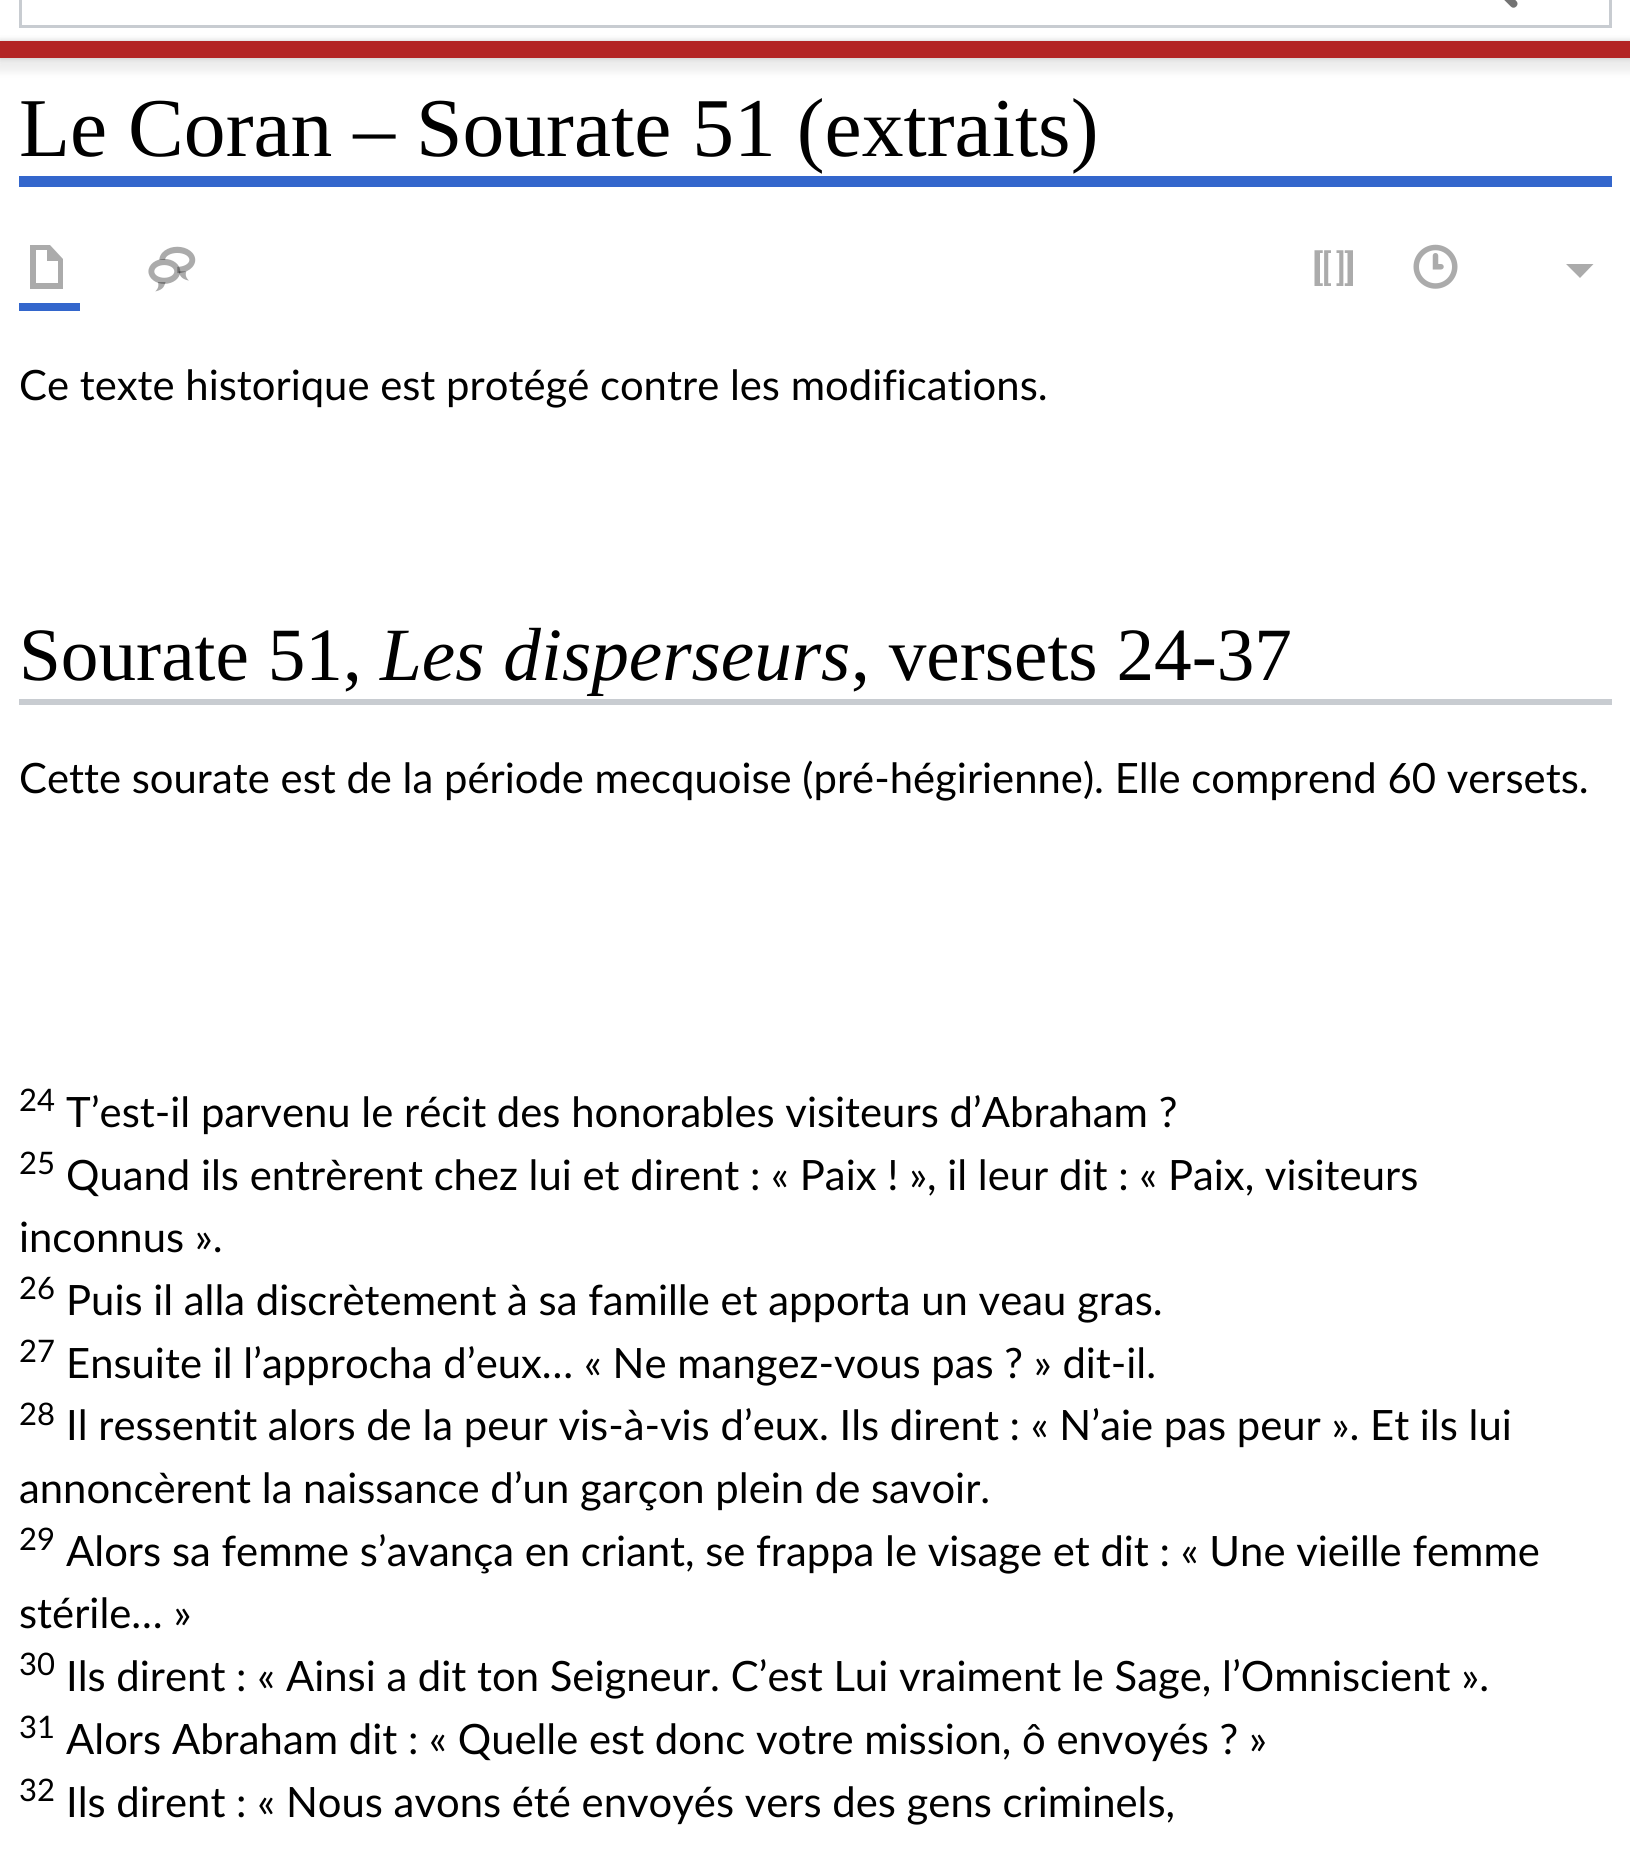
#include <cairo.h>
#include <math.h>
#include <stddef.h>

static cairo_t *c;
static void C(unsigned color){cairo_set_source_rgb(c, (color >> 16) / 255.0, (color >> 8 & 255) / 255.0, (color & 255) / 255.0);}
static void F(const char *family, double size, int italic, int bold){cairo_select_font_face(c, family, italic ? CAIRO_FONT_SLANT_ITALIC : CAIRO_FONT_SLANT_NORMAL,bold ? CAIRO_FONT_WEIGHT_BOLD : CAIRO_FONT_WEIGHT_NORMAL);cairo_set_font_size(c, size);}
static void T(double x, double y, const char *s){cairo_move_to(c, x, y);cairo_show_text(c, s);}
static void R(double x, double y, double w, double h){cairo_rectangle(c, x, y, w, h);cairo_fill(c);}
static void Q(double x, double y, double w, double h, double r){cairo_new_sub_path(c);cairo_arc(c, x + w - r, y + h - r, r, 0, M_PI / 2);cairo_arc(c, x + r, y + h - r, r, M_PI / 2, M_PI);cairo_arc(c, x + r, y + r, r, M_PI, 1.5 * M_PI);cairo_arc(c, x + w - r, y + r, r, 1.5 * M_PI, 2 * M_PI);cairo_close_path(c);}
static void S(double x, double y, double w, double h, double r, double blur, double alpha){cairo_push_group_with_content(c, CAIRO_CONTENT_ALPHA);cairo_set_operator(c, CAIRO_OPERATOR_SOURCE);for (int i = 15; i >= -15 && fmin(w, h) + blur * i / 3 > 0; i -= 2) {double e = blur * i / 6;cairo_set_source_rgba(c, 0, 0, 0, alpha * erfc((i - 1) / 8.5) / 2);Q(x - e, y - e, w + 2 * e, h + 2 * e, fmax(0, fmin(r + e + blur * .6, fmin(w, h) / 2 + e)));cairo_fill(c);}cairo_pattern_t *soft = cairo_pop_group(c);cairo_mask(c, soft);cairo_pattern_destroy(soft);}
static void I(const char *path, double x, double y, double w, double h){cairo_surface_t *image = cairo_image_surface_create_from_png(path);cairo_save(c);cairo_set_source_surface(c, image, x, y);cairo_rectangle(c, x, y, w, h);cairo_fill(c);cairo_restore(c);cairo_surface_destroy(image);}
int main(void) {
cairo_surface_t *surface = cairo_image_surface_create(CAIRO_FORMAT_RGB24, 1630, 1857);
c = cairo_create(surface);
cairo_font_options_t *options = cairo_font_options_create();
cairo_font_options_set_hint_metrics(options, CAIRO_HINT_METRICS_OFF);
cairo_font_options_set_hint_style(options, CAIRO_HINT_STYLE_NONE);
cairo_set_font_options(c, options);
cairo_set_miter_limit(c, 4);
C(0xffffff);
cairo_paint(c);
cairo_rectangle(c,20.5,-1.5,1590,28);
C(0xc8ccd1);
cairo_set_line_width(c,3);
cairo_stroke(c);
I("1.png",1504,0,14,8);
I("2.png",1504,0,14,8);
C(0x000000);
S(0,41,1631,17,0,3,.2);
S(-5,44,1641,28,0,4,.07);
C(0xb32424);
R(0,41,1630,17);
C(0x3366cc);
R(19,176,1593,11);
F("Liberation Serif",83.6,0,0);
C(0x000000);
T(19,156,"Le Coran – Sourate 51 (extraits)");
C(0x3366cc);
R(19,303,61,8);
C(0xababab);
cairo_new_path(c);
cairo_move_to(c,30,245);
cairo_line_to(c,30,289);
cairo_line_to(c,63,289);
cairo_line_to(c,63,259);
cairo_line_to(c,50,245);
cairo_close_path(c);
cairo_move_to(c,36,250);
cairo_line_to(c,47,250);
cairo_line_to(c,47,261);
cairo_line_to(c,58,261);
cairo_line_to(c,58,283);
cairo_line_to(c,36,283);
cairo_close_path(c);
cairo_fill(c);
I("3.png",148,246,48,46);
I("4.png",1314,250,39,36);
I("5.png",1413,244,45,45);
cairo_new_path(c);
cairo_move_to(c,1593.5,264);
cairo_line_to(c,1580,278);
cairo_line_to(c,1566,264);
cairo_close_path(c);
cairo_fill(c);
F("Lato",41.8,0,0);
C(0x000000);
T(19,400,"Ce texte historique est protégé contre les modifications.");
C(0xc8ccd1);
R(19,699,1593,6);
F("Liberation Serif",75.25,0,0);
C(0x000000);
T(19,680,"Sourate 51,");
F("Liberation Serif",75.25,1,0);
T(380,680,"Les disperseurs");
F("Liberation Serif",75.25,0,0);
T(851,680,", versets 24-37");
F("Lato",41.8,0,0);
T(19,793,"Cette sourate est de la période mecquoise (pré-hégirienne). Elle comprend 60 versets.");
F("Lato",31,0,0);
T(19,1111,"24");
F("Lato",41.8,0,0);
T(66,1127,"T’est-il parvenu le récit des honorables visiteurs d’Abraham ?");
F("Lato",31,0,0);
T(19,1174,"25");
F("Lato",41.8,0,0);
T(66,1190,"Quand ils entrèrent chez lui et dirent : « Paix ! », il leur dit : « Paix, visiteurs");
T(19,1252,"inconnus ».");
F("Lato",31,0,0);
T(19,1299,"26");
F("Lato",41.8,0,0);
T(66,1315,"Puis il alla discrètement à sa famille et apporta un veau gras.");
F("Lato",31,0,0);
T(19,1362,"27");
F("Lato",41.8,0,0);
T(66,1378,"Ensuite il l’approcha d’eux… « Ne mangez-vous pas ? » dit-il.");
F("Lato",31,0,0);
T(19,1425,"28");
F("Lato",41.8,0,0);
T(66,1440,"Il ressentit alors de la peur vis-à-vis d’eux. Ils dirent : « N’aie pas peur ». Et ils lui");
T(19,1503,"annoncèrent la naissance d’un garçon plein de savoir.");
F("Lato",31,0,0);
T(19,1550,"29");
F("Lato",41.8,0,0);
T(66,1566,"Alors sa femme s’avança en criant, se frappa le visage et dit : « Une vieille femme");
T(19,1628,"stérile… »");
F("Lato",31,0,0);
T(19,1675,"30");
F("Lato",41.8,0,0);
T(66,1691,"Ils dirent : « Ainsi a dit ton Seigneur. C’est Lui vraiment le Sage, l’Omniscient ».");
F("Lato",31,0,0);
T(19,1738,"31");
F("Lato",41.8,0,0);
T(66,1754,"Alors Abraham dit : « Quelle est donc votre mission, ô envoyés ? »");
F("Lato",31,0,0);
T(19,1801,"32");
F("Lato",41.8,0,0);
T(66,1817,"Ils dirent : « Nous avons été envoyés vers des gens criminels,");
cairo_surface_write_to_png(surface, "o.png");
cairo_font_options_destroy(options);
cairo_destroy(c);
cairo_surface_destroy(surface);
return 0;
}
